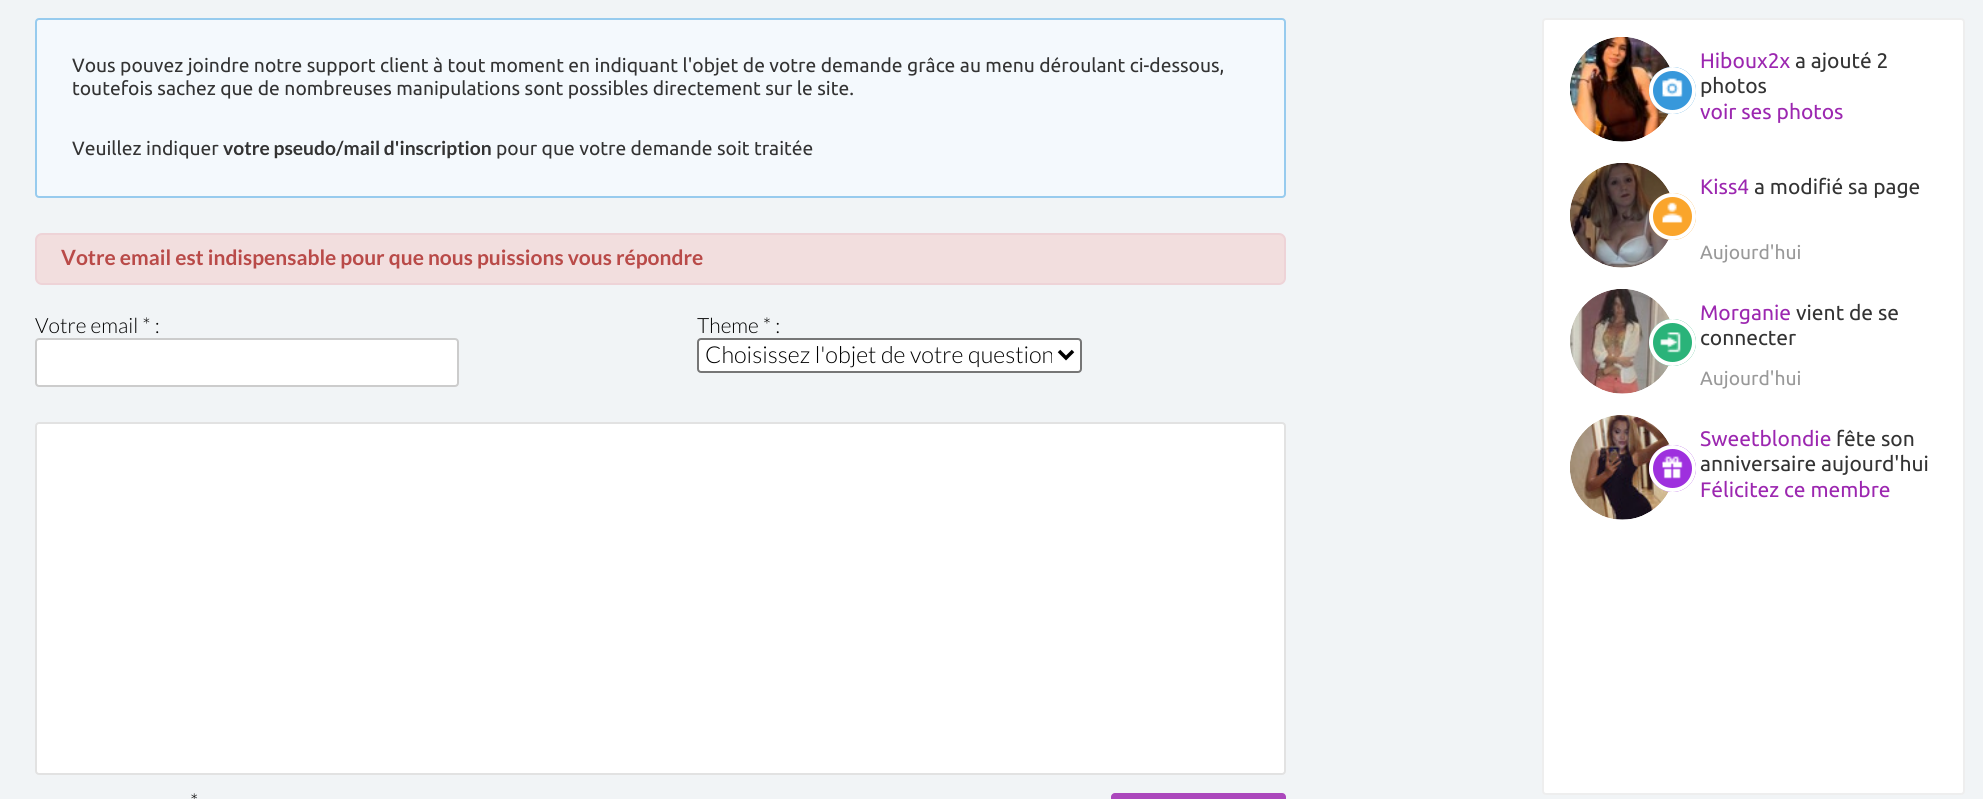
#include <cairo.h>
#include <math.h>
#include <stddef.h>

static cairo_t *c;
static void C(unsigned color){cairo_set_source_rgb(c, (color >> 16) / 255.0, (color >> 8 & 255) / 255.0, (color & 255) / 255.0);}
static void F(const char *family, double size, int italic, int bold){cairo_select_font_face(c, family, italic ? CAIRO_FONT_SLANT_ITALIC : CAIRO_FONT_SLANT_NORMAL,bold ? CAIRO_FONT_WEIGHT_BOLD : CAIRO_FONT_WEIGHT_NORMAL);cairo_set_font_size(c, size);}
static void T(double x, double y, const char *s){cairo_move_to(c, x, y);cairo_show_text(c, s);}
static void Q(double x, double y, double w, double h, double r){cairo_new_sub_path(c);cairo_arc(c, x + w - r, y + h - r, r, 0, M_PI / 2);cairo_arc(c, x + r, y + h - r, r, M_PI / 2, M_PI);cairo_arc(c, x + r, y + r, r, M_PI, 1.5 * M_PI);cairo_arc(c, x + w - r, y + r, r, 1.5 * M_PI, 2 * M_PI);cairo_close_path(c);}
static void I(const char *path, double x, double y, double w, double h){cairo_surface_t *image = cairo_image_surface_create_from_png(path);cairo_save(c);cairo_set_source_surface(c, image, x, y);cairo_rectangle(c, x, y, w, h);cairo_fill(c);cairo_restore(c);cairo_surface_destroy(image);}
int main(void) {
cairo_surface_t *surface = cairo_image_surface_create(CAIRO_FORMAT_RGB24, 1983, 799);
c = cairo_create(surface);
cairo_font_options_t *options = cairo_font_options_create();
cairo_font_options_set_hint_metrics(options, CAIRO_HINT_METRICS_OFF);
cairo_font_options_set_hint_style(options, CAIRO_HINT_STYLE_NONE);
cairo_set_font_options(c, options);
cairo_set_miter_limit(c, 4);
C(0xf1f4f6);
cairo_paint(c);
C(0xf4f9fd);
Q(36,19,1249,178,3);
cairo_fill_preserve(c);
C(0x97cbee);
cairo_stroke(c);
F("Ubuntu",19.25,0,0);
C(0x333333);
T(72,72,"Vous pouvez joindre notre support client à tout moment en indiquant l'objet de votre demande grâce au menu déroulant ci-dessous,");
T(72,95,"toutefois sachez que de nombreuses manipulations sont possibles directement sur le site.");
T(72,155,"Veuillez indiquer");
F("Lato",19.25,0,1);
T(223,155,"votre pseudo/mail d'inscription");
F("Ubuntu",19.25,0,0);
T(496,155,"pour que votre demande soit traitée");
C(0xf2dede);
Q(36,234,1249,50,6);
cairo_fill_preserve(c);
C(0xeed3d7);
cairo_stroke(c);
F("Lato",21,0,1);
C(0xb94a48);
T(61,265,"Votre email est indispensable pour que nous puissions vous répondre");
F("Lato Light",21,0,0);
C(0x000000);
T(35,333,"Votre email * :");
C(0xffffff);
Q(36,339,422,47,3);
cairo_fill_preserve(c);
C(0xcccccc);
cairo_stroke(c);
C(0x000000);
T(697,333,"Theme * :");
C(0xffffff);
Q(698,339,383,33,3);
cairo_fill_preserve(c);
C(0x767676);
cairo_stroke(c);
cairo_new_path(c);
cairo_move_to(c,1059,351);
cairo_line_to(c,1066,358);
cairo_line_to(c,1073,351);
C(0x000000);
cairo_set_line_width(c,3.5);
cairo_stroke(c);
cairo_save(c);
cairo_rectangle(c,705,340,347,31);
cairo_clip(c);
F("Lato Light",23.3,0,0);
T(705,363,"Choisissez l'objet de votre question");
cairo_restore(c);
C(0xffffff);
Q(36,423,1249,351,3);
cairo_fill_preserve(c);
C(0xe2e2e2);
cairo_set_line_width(c,2);
cairo_stroke(c);
C(0x000000);
T(190,809,"*");
C(0xab47bc);
Q(1111,793,175,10,4);
cairo_fill(c);
C(0xffffff);
Q(1543,19,421,775,3);
cairo_fill_preserve(c);
C(0xeeeeee);
cairo_stroke(c);
I("1.png",1570,37,100,105);
C(0x3798db);
cairo_arc(c,1672.5,90.5,23.5,0,2 * M_PI);
cairo_fill(c);
I("2.png",1662,78,21,19);
cairo_arc(c,1672.5,90.5,21.5,0,2 * M_PI);
C(0xffffff);
cairo_set_line_width(c,4);
cairo_stroke(c);
F("Ubuntu",21,0,0);
C(0x9c27b0);
T(1700,68,"Hiboux2x");
C(0x333333);
T(1795,68,"a ajouté 2");
T(1700,93,"photos");
C(0x9c27b0);
T(1700,119,"voir ses photos");
I("3.png",1570,163,100,105);
T(1700,194,"Kiss4");
C(0x333333);
T(1754,194,"a modifié sa page");
C(0xfaa52b);
cairo_new_path(c);
cairo_arc(c,1672.5,216.5,23.5,0,2 * M_PI);
cairo_fill(c);
I("4.png",1662,202,21,21);
cairo_arc(c,1672.5,216.5,21.5,0,2 * M_PI);
C(0xffffff);
cairo_stroke(c);
F("Ubuntu",19.25,0,0);
C(0x999999);
T(1700,259,"Aujourd'hui");
I("5.png",1570,289,100,105);
C(0x2ab379);
cairo_arc(c,1672.5,342.5,23.5,0,2 * M_PI);
cairo_fill(c);
I("6.png",1660,332,21,21);
cairo_arc(c,1672.5,342.5,21.5,0,2 * M_PI);
C(0xffffff);
cairo_stroke(c);
F("Ubuntu",21,0,0);
C(0x9c27b0);
T(1700,320,"Morganie");
C(0x333333);
T(1796,320,"vient de se");
T(1700,345,"connecter");
F("Ubuntu",19.25,0,0);
C(0x999999);
T(1700,385,"Aujourd'hui");
I("7.png",1570,415,100,105);
C(0x9e30de);
cairo_arc(c,1672.5,468.5,23.5,0,2 * M_PI);
cairo_fill(c);
I("8.png",1662,456,21,23);
cairo_arc(c,1672.5,468.5,21.5,0,2 * M_PI);
C(0xffffff);
cairo_stroke(c);
F("Ubuntu",21,0,0);
C(0x9c27b0);
T(1700,446,"Sweetblondie");
C(0x333333);
T(1836,446,"fête son");
T(1700,471,"anniversaire aujourd'hui");
C(0x9c27b0);
T(1700,497,"Félicitez ce membre");
cairo_surface_write_to_png(surface, "o.png");
cairo_font_options_destroy(options);
cairo_destroy(c);
cairo_surface_destroy(surface);
return 0;
}
